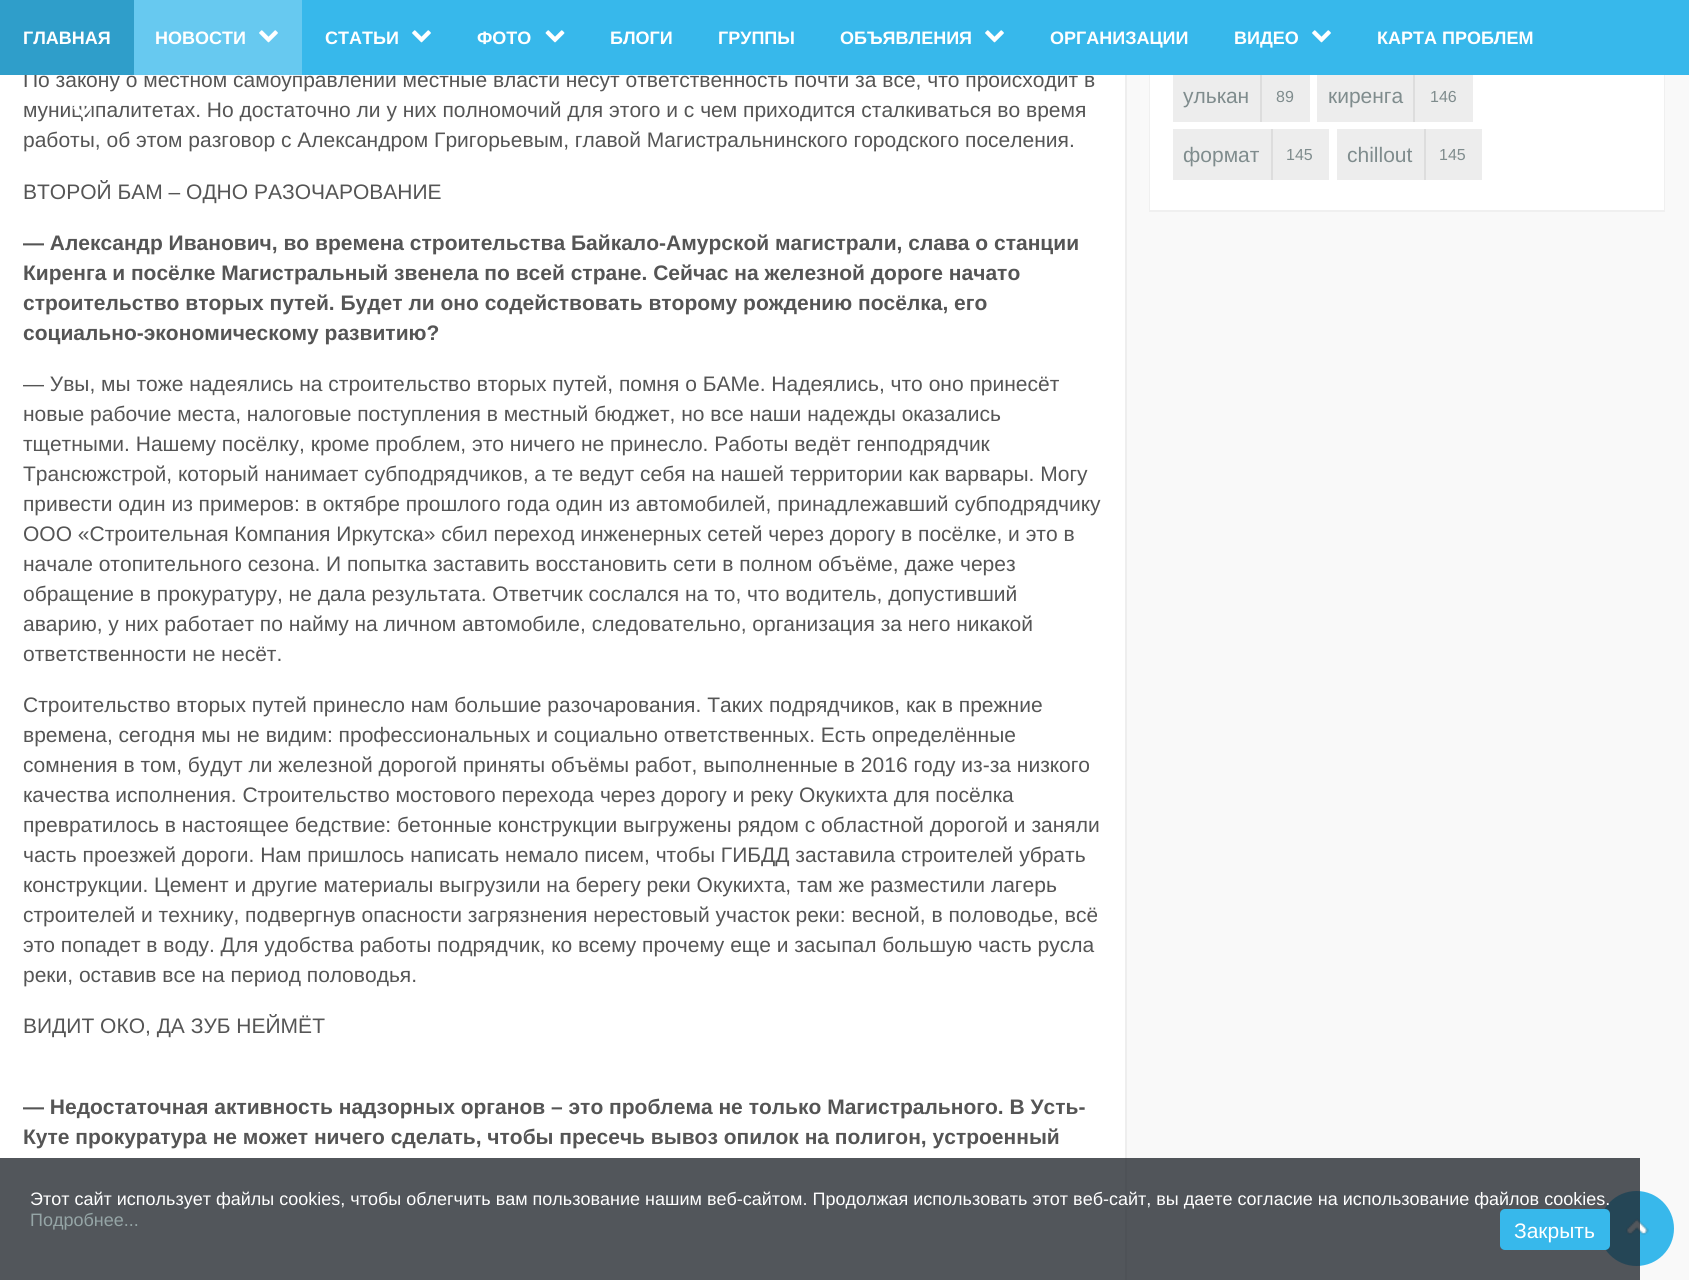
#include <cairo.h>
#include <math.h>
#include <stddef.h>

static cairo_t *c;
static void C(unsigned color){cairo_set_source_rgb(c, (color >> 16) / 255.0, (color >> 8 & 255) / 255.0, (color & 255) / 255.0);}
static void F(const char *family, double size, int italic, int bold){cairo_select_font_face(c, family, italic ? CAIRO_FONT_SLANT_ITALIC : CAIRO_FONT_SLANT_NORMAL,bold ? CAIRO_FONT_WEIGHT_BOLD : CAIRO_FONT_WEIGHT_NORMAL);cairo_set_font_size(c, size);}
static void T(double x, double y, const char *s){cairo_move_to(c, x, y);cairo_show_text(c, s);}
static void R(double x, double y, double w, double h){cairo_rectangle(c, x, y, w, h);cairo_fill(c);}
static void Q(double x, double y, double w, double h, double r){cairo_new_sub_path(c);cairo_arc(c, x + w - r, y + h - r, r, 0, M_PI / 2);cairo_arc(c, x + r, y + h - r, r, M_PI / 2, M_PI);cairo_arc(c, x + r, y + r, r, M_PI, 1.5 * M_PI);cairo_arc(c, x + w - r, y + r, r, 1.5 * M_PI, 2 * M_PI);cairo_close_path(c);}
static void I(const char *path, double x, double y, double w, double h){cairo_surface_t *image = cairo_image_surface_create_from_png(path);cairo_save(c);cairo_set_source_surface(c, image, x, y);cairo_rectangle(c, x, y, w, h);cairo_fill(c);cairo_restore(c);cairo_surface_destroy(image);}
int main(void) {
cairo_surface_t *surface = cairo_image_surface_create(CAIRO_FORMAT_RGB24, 1689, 1280);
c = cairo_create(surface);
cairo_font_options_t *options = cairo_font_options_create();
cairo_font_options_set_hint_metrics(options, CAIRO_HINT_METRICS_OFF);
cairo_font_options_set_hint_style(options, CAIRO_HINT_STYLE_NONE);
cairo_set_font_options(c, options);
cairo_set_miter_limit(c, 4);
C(0xf9f9f9);
cairo_paint(c);
C(0xffffff);
R(0,75,1125,1205);
F("Liberation Sans",21,0,0);
C(0x555555);
T(23,87,"По закону о местном самоуправлении местные власти несут ответственность почти за всё, что происходит в");
C(0xffffff);
R(1149,75,516,137);
C(0xf0f0f0);
cairo_new_path(c);
cairo_move_to(c,1665,-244);
cairo_line_to(c,1665,212);
cairo_line_to(c,1664,210);
cairo_line_to(c,1664,-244);
cairo_close_path(c);
cairo_fill(c);
cairo_set_source_rgba(c,0,0,0,0.06);
cairo_new_path(c);
cairo_move_to(c,1665,212);
cairo_line_to(c,1149,212);
cairo_line_to(c,1150,210);
cairo_line_to(c,1664,210);
cairo_close_path(c);
cairo_fill(c);
cairo_new_path(c);
cairo_move_to(c,1149,212);
cairo_line_to(c,1149,-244);
cairo_line_to(c,1150,-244);
cairo_line_to(c,1150,210);
cairo_close_path(c);
cairo_fill(c);
C(0xededed);
R(1173,75,137,47);
C(0xdddddd);
R(1260,71,2,51);
C(0xededed);
R(1317,75,156,47);
C(0xdddddd);
R(1413,71,2,51);
C(0x37b8eb);
R(302,0,1387,75);
C(0x2f9eca);
R(0,0,134,75);
F("Liberation Sans",18,0,1);
C(0xffffff);
T(23,44,"ГЛАВНАЯ");
C(0x67c9f0);
R(134,0,168,75);
C(0xffffff);
T(155,44,"НОВОСТИ");
I("1.png",259,30,19,13);
T(325,44,"СТАТЬИ");
I("2.png",412,30,19,13);
T(477,44,"ФОТО");
I("3.png",545,30,20,13);
T(610,44,"БЛОГИ");
T(718,44,"ГРУППЫ");
T(840,44,"ОБЪЯВЛЕНИЯ");
I("2.png",985,30,19,13);
T(1050,44,"ОРГАНИЗАЦИИ");
T(1234,44,"ВИДЕО");
I("2.png",1312,30,19,13);
T(1377,44,"КАРТА ПРОБЛЕМ");
F("Liberation Sans",21,0,0);
C(0x555555);
T(23,117,"муниципалитетах. Но достаточно ли у них полномочий для этого и с чем приходится сталкиваться во время");
I("4.png",73,106,19,12);
C(0xeeeeee);
R(1125,75,2,1205);
C(0x555555);
T(23,147,"работы, об этом разговор с Александром Григорьевым, главой Магистральнинского городского поселения.");
T(23,199,"ВТОРОЙ БАМ – ОДНО РАЗОЧАРОВАНИЕ");
cairo_save(c);
cairo_rectangle(c,23,0,1080,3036);
cairo_clip(c);
F("Liberation Sans",21,0,1);
T(23,250,"— Александр Иванович, во времена строительства Байкало-Амурской магистрали, слава о станции");
cairo_restore(c);
F("Liberation Sans",21,0,1);
T(23,280,"Киренга и посёлке Магистральный звенела по всей стране. Сейчас на железной дороге начато");
T(23,310,"строительство вторых путей. Будет ли оно содействовать второму рождению посёлка, его");
T(23,340,"социально-экономическому развитию?");
F("Liberation Sans",21,0,0);
T(23,391,"— Увы, мы тоже надеялись на строительство вторых путей, помня о БАМе. Надеялись, что оно принесёт");
T(23,421,"новые рабочие места, налоговые поступления в местный бюджет, но все наши надежды оказались");
T(23,451,"тщетными. Нашему посёлку, кроме проблем, это ничего не принесло. Работы ведёт генподрядчик");
T(23,481,"Трансюжстрой, который нанимает субподрядчиков, а те ведут себя на нашей территории как варвары. Могу");
T(23,511,"привести один из примеров: в октябре прошлого года один из автомобилей, принадлежавший субподрядчику");
T(23,541,"ООО «Строительная Компания Иркутска» сбил переход инженерных сетей через дорогу в посёлке, и это в");
T(23,571,"начале отопительного сезона. И попытка заставить восстановить сети в полном объёме, даже через");
T(23,601,"обращение в прокуратуру, не дала результата. Ответчик сослался на то, что водитель, допустивший");
T(23,631,"аварию, у них работает по найму на личном автомобиле, следовательно, организация за него никакой");
T(23,661,"ответственности не несёт.");
T(23,712,"Строительство вторых путей принесло нам большие разочарования. Таких подрядчиков, как в прежние");
T(23,742,"времена, сегодня мы не видим: профессиональных и социально ответственных. Есть определённые");
T(23,772,"сомнения в том, будут ли железной дорогой приняты объёмы работ, выполненные в 2016 году из-за низкого");
T(23,802,"качества исполнения. Строительство мостового перехода через дорогу и реку Окукихта для посёлка");
T(23,832,"превратилось в настоящее бедствие: бетонные конструкции выгружены рядом с областной дорогой и заняли");
T(23,862,"часть проезжей дороги. Нам пришлось написать немало писем, чтобы ГИБДД заставила строителей убрать");
T(23,892,"конструкции. Цемент и другие материалы выгрузили на берегу реки Окукихта, там же разместили лагерь");
T(23,922,"строителей и технику, подвергнув опасности загрязнения нерестовый участок реки: весной, в половодье, всё");
T(23,952,"это попадет в воду. Для удобства работы подрядчик, ко всему прочему еще и засыпал большую часть русла");
T(23,982,"реки, оставив все на период половодья.");
T(23,1033,"ВИДИТ ОКО, ДА ЗУБ НЕЙМЁТ");
cairo_save(c);
cairo_rectangle(c,23,0,1080,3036);
cairo_clip(c);
F("Liberation Sans",21,0,1);
T(23,1114,"— Недостаточная активность надзорных органов – это проблема не только Магистрального. В Усть-");
cairo_restore(c);
F("Liberation Sans",21,0,1);
T(23,1144,"Куте прокуратура не может ничего сделать, чтобы пресечь вывоз опилок на полигон, устроенный");
F("Liberation Sans",21,0,0);
C(0x7f8c8d);
T(1183,103,"улькан");
F("Liberation Sans",16,0,0);
T(1276,102,"89");
F("Liberation Sans",21,0,0);
T(1328,103,"киренга");
F("Liberation Sans",16,0,0);
T(1430,102,"146");
C(0xededed);
R(1173,129,156,51);
C(0xdddddd);
R(1271,129,2,51);
F("Liberation Sans",21,0,0);
C(0x7f8c8d);
T(1183,162,"формат");
F("Liberation Sans",16,0,0);
T(1286,160,"145");
C(0xededed);
R(1337,129,145,51);
C(0xdddddd);
R(1424,129,2,51);
F("Liberation Sans",21,0,0);
C(0x7f8c8d);
T(1347,162,"chillout");
F("Liberation Sans",16,0,0);
T(1439,160,"145");
C(0x38b8eb);
cairo_new_path(c);
cairo_arc(c,1636.5,1228.5,37.5,0,2 * M_PI);
cairo_fill(c);
I("5.png",1625,1218,24,17);
cairo_set_source_rgba(c,0.122,0.145,0.169,0.77);
R(0,1158,1640,122);
F("Liberation Sans",18,0,0);
C(0xffffff);
T(30,1205,"Этот сайт использует файлы cookies, чтобы облегчить вам пользование нашим веб-сайтом. Продолжая использовать этот веб-сайт, вы даете согласие на использование файлов cookies.");
C(0x95a5a6);
T(30,1226,"Подробнее...");
C(0x37b8eb);
Q(1500,1209,110,41,5);
cairo_fill(c);
F("Liberation Sans",21,0,0);
C(0xffffff);
T(1514,1238,"Закрыть");
cairo_surface_write_to_png(surface, "o.png");
cairo_font_options_destroy(options);
cairo_destroy(c);
cairo_surface_destroy(surface);
return 0;
}
